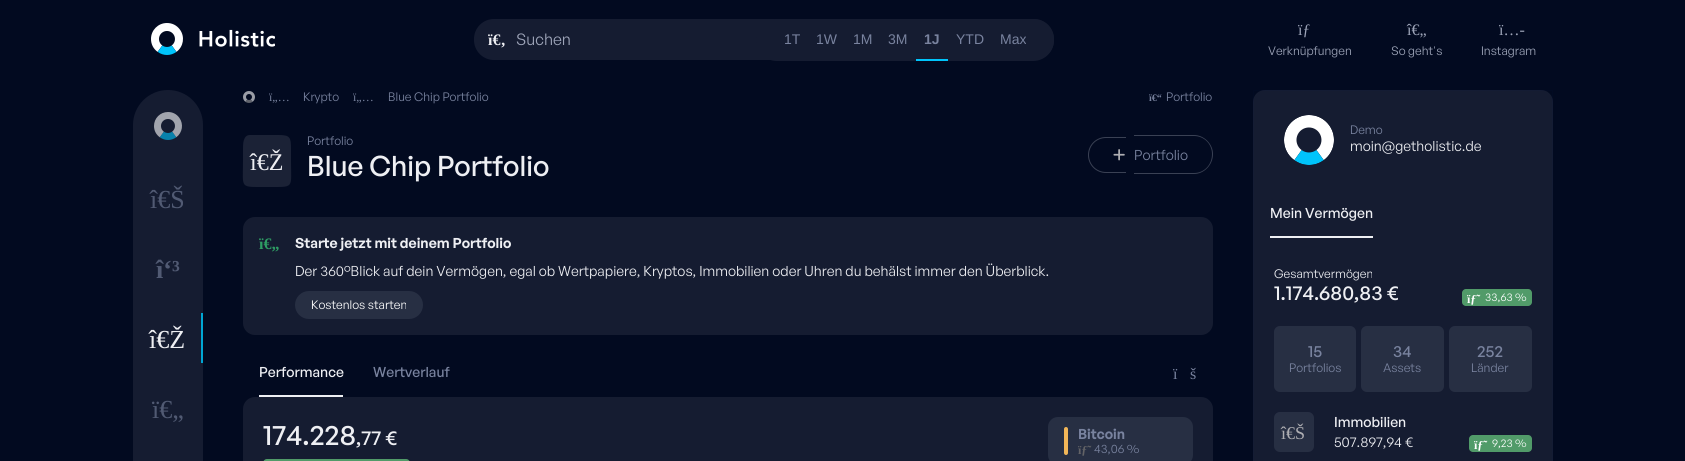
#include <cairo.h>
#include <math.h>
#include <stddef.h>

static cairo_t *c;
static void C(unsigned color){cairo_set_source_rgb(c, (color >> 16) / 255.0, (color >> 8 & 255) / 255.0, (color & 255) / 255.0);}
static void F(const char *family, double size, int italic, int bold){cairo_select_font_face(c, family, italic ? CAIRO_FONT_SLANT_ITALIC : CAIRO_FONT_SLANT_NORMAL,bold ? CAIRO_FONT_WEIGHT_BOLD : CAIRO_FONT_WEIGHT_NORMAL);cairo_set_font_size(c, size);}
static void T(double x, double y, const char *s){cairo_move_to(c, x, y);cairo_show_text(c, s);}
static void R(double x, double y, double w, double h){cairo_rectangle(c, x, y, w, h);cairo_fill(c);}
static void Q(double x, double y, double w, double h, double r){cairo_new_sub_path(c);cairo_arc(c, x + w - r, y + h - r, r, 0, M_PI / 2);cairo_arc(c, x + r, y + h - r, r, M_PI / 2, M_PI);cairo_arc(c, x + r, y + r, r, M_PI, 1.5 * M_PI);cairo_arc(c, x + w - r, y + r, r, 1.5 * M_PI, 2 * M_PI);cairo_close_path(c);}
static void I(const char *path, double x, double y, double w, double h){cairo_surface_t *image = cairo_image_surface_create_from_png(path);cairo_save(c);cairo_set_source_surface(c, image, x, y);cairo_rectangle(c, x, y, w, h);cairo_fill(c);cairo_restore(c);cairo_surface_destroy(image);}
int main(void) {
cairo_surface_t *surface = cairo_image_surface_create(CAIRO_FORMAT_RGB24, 1685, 461);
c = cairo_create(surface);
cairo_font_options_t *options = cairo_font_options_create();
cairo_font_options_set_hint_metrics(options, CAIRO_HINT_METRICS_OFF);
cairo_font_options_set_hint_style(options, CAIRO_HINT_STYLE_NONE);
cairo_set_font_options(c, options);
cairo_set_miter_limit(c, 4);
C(0x020a20);
cairo_paint(c);
I("1.png",151,23,124,32);
C(0x151c31);
Q(474,19,580,41,20);
cairo_fill(c);
F("Liberation Serif",16,0,1);
C(0xeeeff3);
T(488,45,"ï€‚");
F("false",16,0,0);
C(0x9da4b8);
T(516,45,"Suchen");
C(0x151c31);
Q(756,19,298,42,21);
cairo_fill(c);
F("Liberation Sans",14,0,0);
C(0x79839f);
T(784,44,"1T");
T(816,44,"1W");
T(853,44,"1M");
T(888,44,"3M");
C(0x00c4fb);
R(916,59,32,2);
F("Liberation Sans",14,0,1);
C(0x79839f);
T(924,44,"1J");
F("Liberation Sans",14,0,0);
T(956,44,"YTD");
T(1000,44,"Max");
F("Liberation Serif",16,0,0);
C(0x9da4b8);
T(1298,35,"ïƒ");
F("false",12,0,0);
T(1268,55,"Verknüpfungen");
F("Liberation Serif",16,0,0);
T(1407,35,"î€„");
F("false",12,0,0);
T(1391,55,"So geht's");
F("Liberation Serif",16,0,0);
T(1499,35,"ï…-");
F("false",12,0,0);
T(1481,55,"Instagram");
C(0x151c31);
Q(133,90,70,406,35);
cairo_fill(c);
I("2.png",154,112,28,28);
F("Liberation Serif",26,0,0);
C(0x515a73);
T(150,208,"î€Š");
F("Liberation Serif",26,0,1);
T(156,278,"î‘³");
C(0x00a6d4);
R(201,313,2,50);
F("Liberation Serif",26,0,0);
C(0xeeeff3);
T(149,348,"î€Ž");
C(0x515a73);
T(152,418,"ï€„");
I("3.png",243,91,12,12);
F("Liberation Serif",12,0,0);
C(0x79839f);
T(269,101,"ï„…");
F("false",12,0,0);
T(303,101,"Krypto");
F("Liberation Serif",12,0,0);
T(353,101,"ï„…");
F("false",12,0,0);
T(388,101,"Blue Chip Portfolio");
F("Liberation Serif",10,0,1);
T(1149,101,"ï€“");
F("false",12,0,0);
T(1166,101,"Portfolio");
C(0x1b2236);
cairo_new_path(c);
cairo_move_to(c,250,135);
cairo_line_to(c,278,135);
cairo_curve_to(c,290,135,291,137,291,149);
cairo_line_to(c,291,161);
cairo_curve_to(c,291,189,295,187,267,187);
cairo_curve_to(c,239,187,243,189,243,161);
cairo_line_to(c,243,149);
cairo_curve_to(c,243,144,243,135,250,135);
cairo_close_path(c);
cairo_fill(c);
F("Liberation Serif",24,0,0);
C(0xeeeff3);
T(250,170,"î€Ž");
F("false",12,0,0);
C(0x79839f);
T(307,145,"Portfolio");
F("General Sans Medium",28,0,0);
C(0xeeeff3);
T(307,176,"Blue Chip Portfolio");
C(0x3a4154);
cairo_set_fill_rule(c,CAIRO_FILL_RULE_EVEN_ODD);
cairo_new_path(c);
cairo_move_to(c,1106,137);
cairo_line_to(c,1126,137);
cairo_line_to(c,1126,173);
cairo_line_to(c,1106,173);
cairo_curve_to(c,1096,173,1088,165,1088,155);
cairo_curve_to(c,1088,145,1096,137,1106,137);
cairo_close_path(c);
cairo_move_to(c,1106,138);
cairo_line_to(c,1126,138);
cairo_line_to(c,1126,172);
cairo_line_to(c,1106,172);
cairo_curve_to(c,1096.5,172,1089,164.5,1089,155);
cairo_curve_to(c,1089,145.5,1096.5,138,1106,138);
cairo_close_path(c);
cairo_fill(c);
cairo_new_path(c);
cairo_move_to(c,1134,135);
cairo_line_to(c,1194,135);
cairo_curve_to(c,1204,135,1213,144,1213,154);
cairo_curve_to(c,1213,165,1204,174,1194,174);
cairo_line_to(c,1134,174);
cairo_close_path(c);
cairo_move_to(c,1134,136);
cairo_line_to(c,1194,136);
cairo_curve_to(c,1204,136,1212,144,1212,154);
cairo_curve_to(c,1212,165,1204,173,1194,173);
cairo_line_to(c,1134,173);
cairo_close_path(c);
cairo_fill(c);
I("4.png",1113,149,12,12);
F("false",14,0,0);
C(0x79839f);
T(1134,160,"Portfolio");
C(0x151c31);
Q(243,217,970,118,12);
cairo_fill(c);
F("Liberation Serif",16,0,1);
C(0x2e9d64);
T(259,249,"ï€„");
F("General Sans SemiBold",14,0,0);
C(0xeeeff3);
T(295,248,"Starte jetzt mit deinem Portfolio");
F("false",14,0,0);
T(295,276,"Der 360°Blick auf dein Vermögen, egal ob Wertpapiere, Kryptos, Immobilien oder Uhren du behälst immer den Überblick.");
C(0x272f43);
Q(295,291,128,28,14);
cairo_fill(c);
F("false",12,0,0);
C(0xffffff);
T(311,309,"Kostenlos starten");
C(0xeeeff3);
R(259,395,84,2);
F("General Sans Medium",14,0,0);
T(259,377,"Performance");
C(0x79839f);
T(373,377,"Wertverlauf");
F("Liberation Serif",16,0,0);
T(1173,379,"ï");
T(1190,379,"š");
C(0x151c31);
Q(243,397,970,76,12);
cairo_fill(c);
F("General Sans Medium",28,0,0);
C(0xeeeff3);
T(263,445,"174.228");
F("General Sans Medium",20,0,0);
T(356,445,",77 €");
C(0x519b69);
Q(263,459,147,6,4);
cairo_fill(c);
C(0x272f43);
Q(1048,417,145,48,10);
cairo_fill(c);
C(0xf2b658);
Q(1064,427,4,28,2);
cairo_fill(c);
F("General Sans SemiBold",14,0,0);
C(0x79839f);
T(1078,439,"Bitcoin");
F("Liberation Serif",12,0,1);
C(0x636366);
T(1078,454,"ïƒ˜");
F("false",12,0,0);
C(0x79839f);
T(1094,453,"43,06 %");
C(0x151c31);
Q(1253,90,300,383,12);
cairo_fill(c);
cairo_rectangle(c,1253.5,90.5,299,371);
cairo_set_source_rgba(c,0.004,0.165,0.541,0.03);
cairo_set_line_width(c,1);
cairo_stroke(c);
I("5.png",1284,115,50,50);
C(0x79839f);
T(1350,134,"Demo");
F("false",14,0,0);
C(0xeeeff3);
T(1350,151,"moin@getholistic.de");
R(1270,236,103,2);
F("General Sans Medium",14,0,0);
T(1270,218,"Mein Vermögen");
F("false",12,0,0);
T(1274,278,"Gesamtvermögen");
F("General Sans Medium",20,0,0);
T(1274,300,"1.174.680,83 €");
C(0x519b69);
Q(1462,289,70,17,4);
cairo_fill(c);
F("Liberation Serif",12,0,1);
C(0xffffff);
T(1467,303,"ïƒ˜");
F("false",11,0,0);
T(1485,301,"33,63 %");
C(0x272f43);
Q(1274,326,82,66,6);
cairo_fill(c);
F("General Sans Medium",16,0,0);
C(0x79839f);
T(1308,357,"15");
F("false",12,0,0);
T(1289,372,"Portfolios");
C(0x272f43);
Q(1361,326,83,66,6);
cairo_fill(c);
F("General Sans Medium",16,0,0);
C(0x79839f);
T(1393,357,"34");
F("false",12,0,0);
T(1383,372,"Assets");
C(0x272f43);
Q(1449,326,83,66,6);
cairo_fill(c);
F("General Sans Medium",16,0,0);
C(0x79839f);
T(1477,357,"252");
F("false",12,0,0);
T(1471,372,"Länder");
C(0x272f43);
Q(1274,412,40,40,6);
cairo_fill(c);
F("Liberation Serif",18,0,0);
C(0xaeaeb2);
T(1281,439,"î€Š");
F("General Sans Medium",14,0,0);
C(0xeeeff3);
T(1334,427,"Immobilien");
F("false",14,0,0);
T(1334,447,"507.897,94 €");
C(0x519b69);
Q(1469,435,63,17,4);
cairo_fill(c);
F("Liberation Serif",12,0,1);
C(0xffffff);
T(1474,449,"ïƒ˜");
F("false",11,0,0);
T(1492,447,"9,23 %");
cairo_surface_write_to_png(surface, "o.png");
cairo_font_options_destroy(options);
cairo_destroy(c);
cairo_surface_destroy(surface);
return 0;
}
